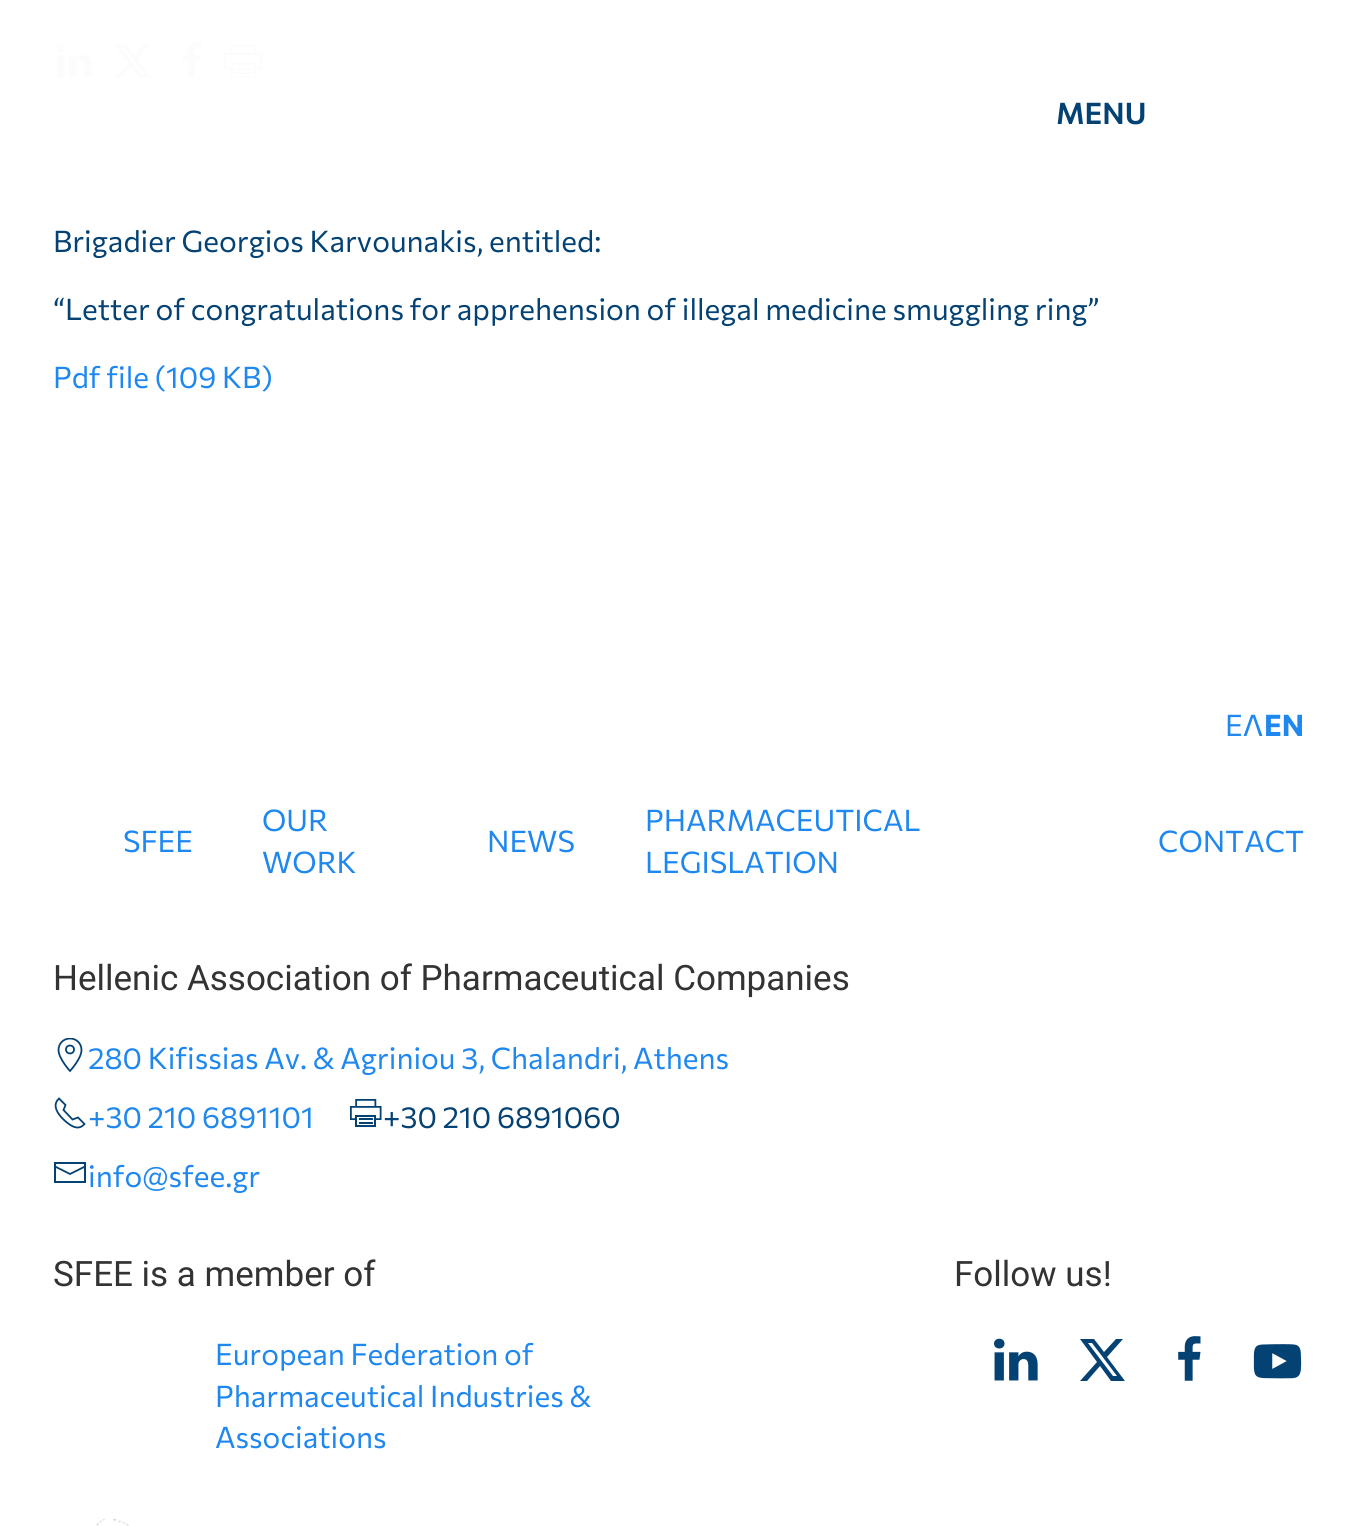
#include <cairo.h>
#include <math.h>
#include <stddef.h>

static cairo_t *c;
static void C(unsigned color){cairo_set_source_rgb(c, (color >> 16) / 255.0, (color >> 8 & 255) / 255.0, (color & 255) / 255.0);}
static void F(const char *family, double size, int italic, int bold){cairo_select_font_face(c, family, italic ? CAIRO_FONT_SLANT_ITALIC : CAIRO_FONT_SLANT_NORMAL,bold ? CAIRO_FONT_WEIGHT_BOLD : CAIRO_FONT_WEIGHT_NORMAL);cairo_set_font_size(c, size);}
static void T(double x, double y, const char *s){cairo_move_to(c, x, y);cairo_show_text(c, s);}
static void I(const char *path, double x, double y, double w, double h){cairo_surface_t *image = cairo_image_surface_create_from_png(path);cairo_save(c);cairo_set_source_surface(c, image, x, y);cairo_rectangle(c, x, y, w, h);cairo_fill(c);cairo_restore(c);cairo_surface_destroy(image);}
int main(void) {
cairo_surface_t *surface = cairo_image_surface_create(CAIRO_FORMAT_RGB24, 1355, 1526);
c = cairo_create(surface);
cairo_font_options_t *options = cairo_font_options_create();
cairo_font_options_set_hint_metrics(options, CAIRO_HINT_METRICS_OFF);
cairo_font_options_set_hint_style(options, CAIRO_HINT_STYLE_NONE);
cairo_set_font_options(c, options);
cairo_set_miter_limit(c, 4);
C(0xffffff);
cairo_paint(c);
F("Commissioner SemiBold",29.75,0,0);
C(0x054274);
T(1056,124,"MENU");
I("1.png",56,44,36,34);
I("2.png",114,44,38,34);
I("3.png",183,42,18,37);
I("4.png",224,44,39,34);
F("Commissioner",29.75,0,0);
T(53,252,"Brigadier Georgios Karvounakis, entitled:");
T(53,320,"“Letter of congratulations for apprehension of illegal medicine smuggling ring”");
C(0x1e87f0);
T(53,388,"Pdf file (109 KB)");
T(1225,736,"ΕΛ");
F("Commissioner",29.75,0,1);
T(1264,736,"EN");
F("Commissioner",29.75,0,0);
T(123,852,"SFEE");
T(262,831,"OUR");
T(262,873,"WORK");
T(487,852,"NEWS");
T(645,831,"PHARMACEUTICAL");
T(645,873,"LEGISLATION");
T(1158,852,"CONTACT");
F("Roboto",35,0,0);
C(0x333333);
T(53,990,"Hellenic Association of Pharmaceutical Companies");
cairo_save(c);
cairo_rectangle(c,53,1038,35,35);
cairo_clip(c);
cairo_new_path(c);
cairo_move_to(c,70,1038.5);
cairo_curve_to(c,63.5,1038.5,58.5,1043.5,58.5,1050);
cairo_curve_to(c,58.5,1058.5,70,1071,70,1071);
cairo_curve_to(c,70,1071,81.5,1058.5,81.5,1050);
cairo_curve_to(c,81.5,1043.5,76.5,1038.5,70,1038.5);
cairo_close_path(c);
C(0x054274);
cairo_set_line_width(c,1.8);
cairo_stroke(c);
cairo_restore(c);
cairo_arc(c,70,1049.5,4,0,2 * M_PI);
C(0x054274);
cairo_set_line_width(c,1.8);
cairo_stroke(c);
F("Commissioner",29.75,0,0);
C(0x1e87f0);
T(88,1069,"280 Kifissias Av. & Agriniou 3, Chalandri, Athens");
cairo_new_path(c);
cairo_move_to(c,63.5,1119.5);
cairo_curve_to(c,69,1124.5,77.5,1132,84.5,1124);
cairo_line_to(c,78,1117.5);
cairo_line_to(c,72.5,1119.5);
cairo_line_to(c,63.5,1110);
cairo_line_to(c,65.5,1105);
cairo_line_to(c,59,1098.5);
cairo_curve_to(c,51.5,1105.5,58,1114,63.5,1119.5);
C(0x054274);
cairo_stroke(c);
C(0x1e87f0);
T(88,1128,"+30 210 6891101");
I("5.png",349,1098,33,29);
C(0x054274);
T(383,1128,"+30 210 6891060");
cairo_new_path(c);
cairo_move_to(c,55,1166.5);
cairo_line_to(c,70,1174);
cairo_line_to(c,85,1166.5);
cairo_stroke(c);
cairo_new_path(c);
cairo_move_to(c,54,1162);
cairo_line_to(c,54,1183);
cairo_line_to(c,86,1183);
cairo_line_to(c,86,1162);
cairo_close_path(c);
cairo_move_to(c,84,1181);
cairo_line_to(c,56,1181);
cairo_line_to(c,56,1164);
cairo_line_to(c,84,1164);
cairo_close_path(c);
cairo_fill(c);
C(0x1e87f0);
T(88,1187,"info@sfee.gr");
F("Roboto",35,0,0);
C(0x333333);
T(53,1286,"SFEE is a member of");
F("Commissioner",29.75,0,0);
C(0x1e87f0);
T(215,1365,"European Federation of");
T(215,1407,"Pharmaceutical Industries &");
T(215,1448,"Associations");
I("6.png",96,1519,34,7);
F("Roboto",35,0,0);
C(0x333333);
T(954,1286,"Follow us!");
I("7.png",994,1338,44,43);
C(0x054274);
cairo_new_path(c);
cairo_move_to(c,1116,1339);
cairo_line_to(c,1123,1339);
cairo_line_to(c,1107,1357);
cairo_line_to(c,1125,1381);
cairo_line_to(c,1111,1381);
cairo_line_to(c,1100,1366);
cairo_line_to(c,1087,1381);
cairo_line_to(c,1080,1381);
cairo_line_to(c,1097,1362);
cairo_line_to(c,1080,1339);
cairo_line_to(c,1094,1339);
cairo_line_to(c,1104,1352);
cairo_close_path(c);
cairo_move_to(c,1113,1376);
cairo_line_to(c,1117,1376);
cairo_line_to(c,1092,1343);
cairo_line_to(c,1088,1343);
cairo_close_path(c);
cairo_fill(c);
I("8.png",1178,1336,23,45);
I("9.png",1253,1344,49,35);
cairo_surface_write_to_png(surface, "o.png");
cairo_font_options_destroy(options);
cairo_destroy(c);
cairo_surface_destroy(surface);
return 0;
}
